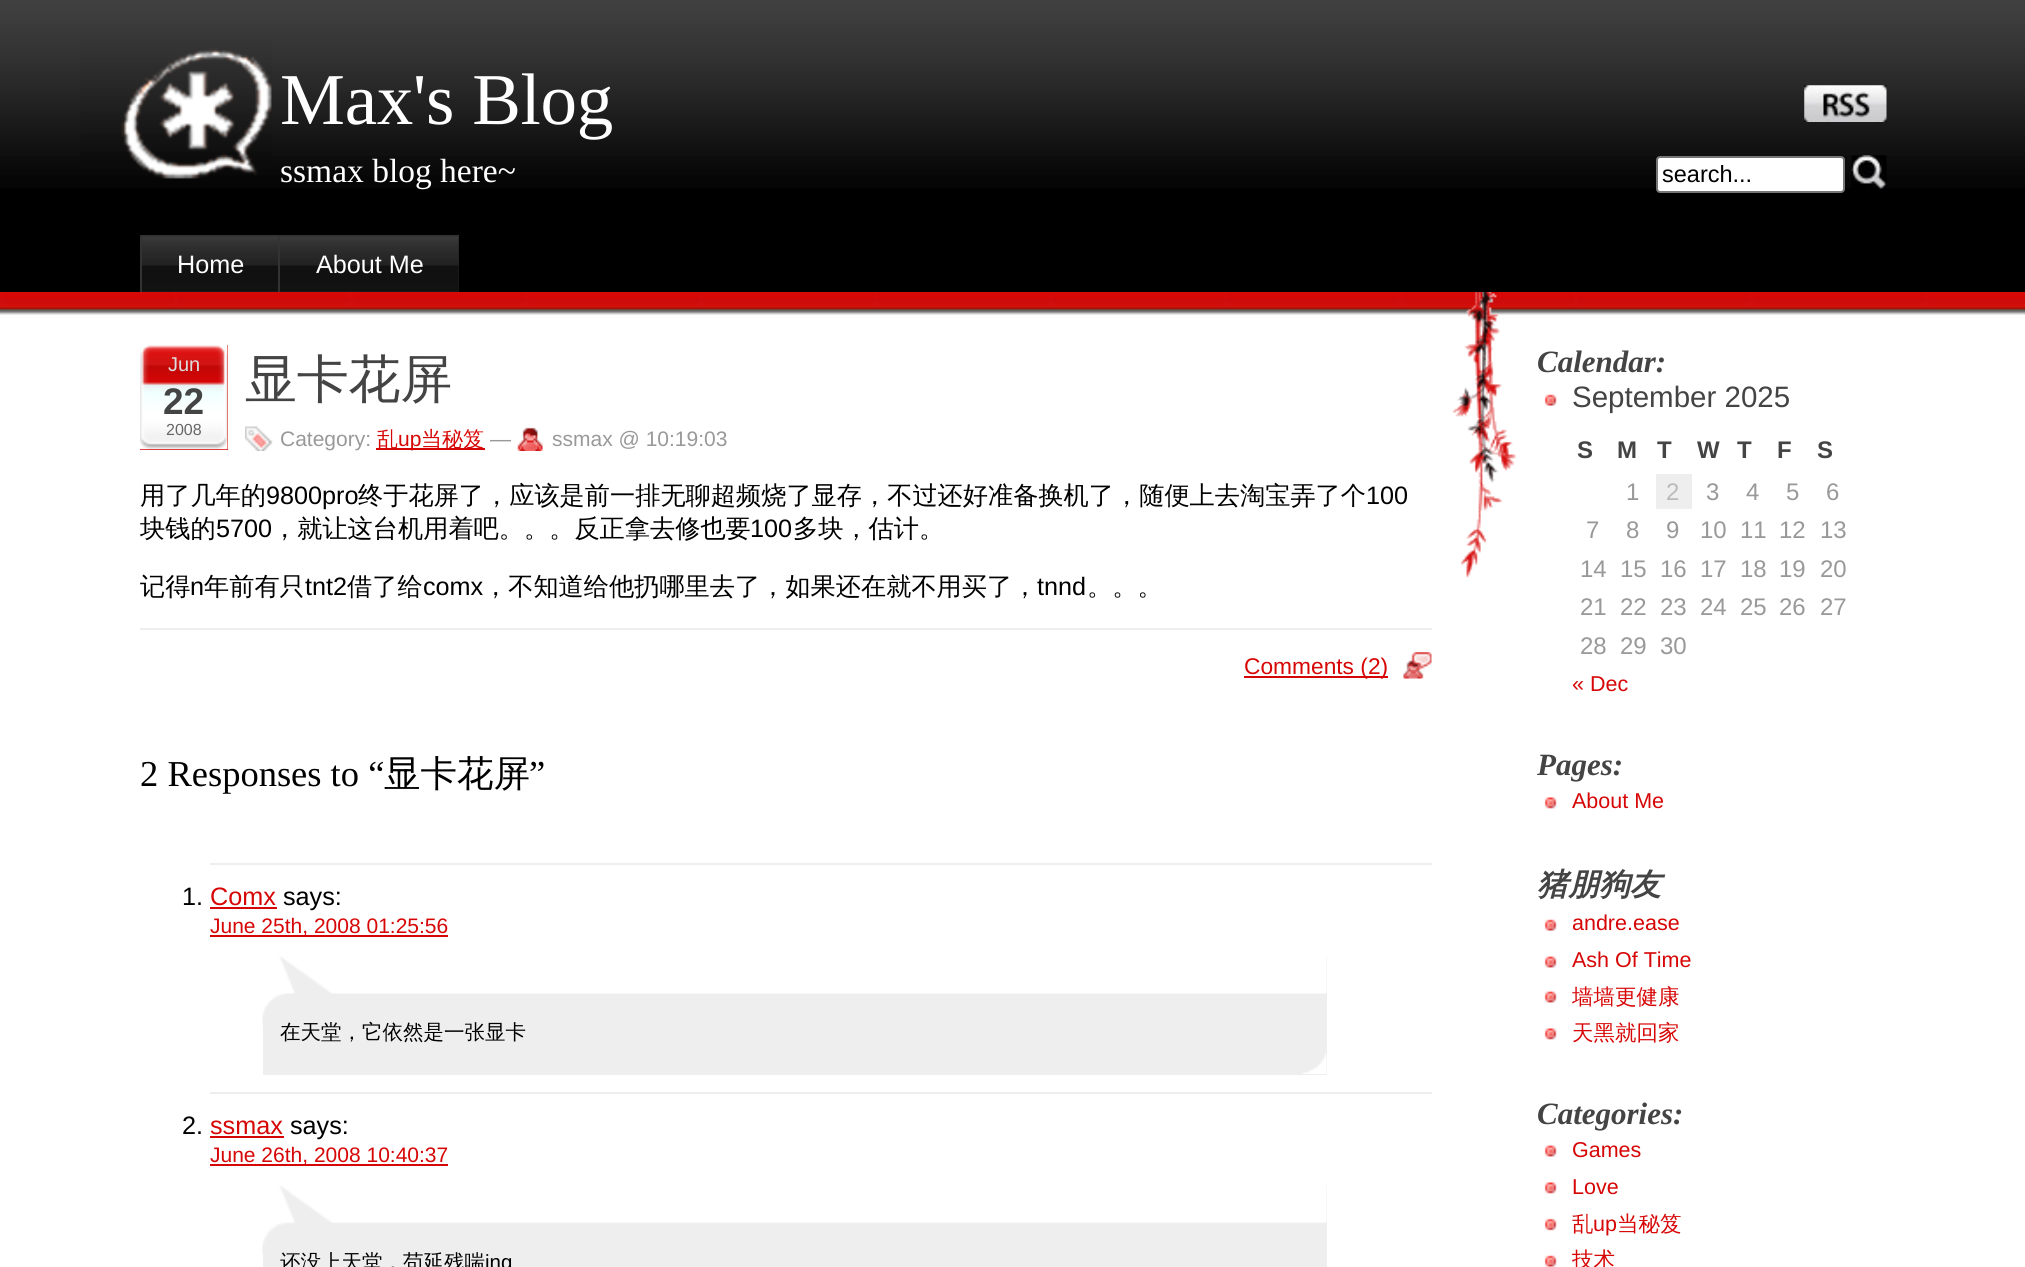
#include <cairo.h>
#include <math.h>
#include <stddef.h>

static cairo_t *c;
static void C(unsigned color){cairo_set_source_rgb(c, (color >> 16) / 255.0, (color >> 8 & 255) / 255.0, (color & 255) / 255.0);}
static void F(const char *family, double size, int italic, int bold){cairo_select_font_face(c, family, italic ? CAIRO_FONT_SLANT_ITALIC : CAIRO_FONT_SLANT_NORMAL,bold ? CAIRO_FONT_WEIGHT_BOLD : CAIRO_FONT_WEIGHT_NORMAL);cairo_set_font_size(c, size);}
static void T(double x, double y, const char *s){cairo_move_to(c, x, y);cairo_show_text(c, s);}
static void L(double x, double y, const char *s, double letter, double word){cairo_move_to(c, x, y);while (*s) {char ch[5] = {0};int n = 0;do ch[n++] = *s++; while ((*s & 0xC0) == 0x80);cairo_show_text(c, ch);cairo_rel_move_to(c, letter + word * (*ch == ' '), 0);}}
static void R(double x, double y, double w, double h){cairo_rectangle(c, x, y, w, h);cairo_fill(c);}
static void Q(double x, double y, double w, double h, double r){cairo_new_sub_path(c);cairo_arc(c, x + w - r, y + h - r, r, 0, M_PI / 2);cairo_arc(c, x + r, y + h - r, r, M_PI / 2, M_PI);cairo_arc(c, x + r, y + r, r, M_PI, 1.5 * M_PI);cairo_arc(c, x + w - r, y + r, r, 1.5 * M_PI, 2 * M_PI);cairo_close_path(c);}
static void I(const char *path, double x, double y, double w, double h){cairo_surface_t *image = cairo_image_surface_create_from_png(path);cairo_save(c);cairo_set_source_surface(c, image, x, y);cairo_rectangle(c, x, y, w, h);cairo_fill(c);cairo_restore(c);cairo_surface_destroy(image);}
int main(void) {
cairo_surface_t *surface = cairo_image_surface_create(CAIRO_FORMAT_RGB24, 2025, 1267);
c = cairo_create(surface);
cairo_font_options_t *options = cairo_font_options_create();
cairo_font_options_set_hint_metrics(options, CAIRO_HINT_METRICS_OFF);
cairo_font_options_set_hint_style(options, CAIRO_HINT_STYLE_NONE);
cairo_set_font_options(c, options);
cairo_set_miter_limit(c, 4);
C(0xffffff);
cairo_paint(c);
I("1.png",0,292,2025,23);
C(0x000000);
R(0,188,2025,104);
I("2.png",0,0,2025,188);
F("Liberation Serif",73,0,0);
C(0xffffff);
L(280,124,"Max's Blog",-.25,0);
I("3.png",1804,85,83,37);
F("Liberation Serif",33.5,0,0);
T(280,182,"ssmax blog here~");
Q(1657,157,187,35,3);
cairo_fill_preserve(c);
C(0x767676);
cairo_stroke(c);
F("Liberation Sans",23.5,0,0);
C(0x000000);
T(1662,182,"search...");
I("4.png",1851,155,36,34);
C(0x222222);
R(142,291,136,1);
I("5.png",142,237,136,55);
C(0x333333);
R(140,235,319,2);
R(140,235,2,57);
F("Liberation Sans",25.2,0,0);
C(0xffffff);
T(177,273,"Home");
C(0x222222);
R(280,237,179,55);
I("6.png",280,237,179,55);
C(0x333333);
R(278,235,2,57);
C(0xffffff);
T(316,273,"About Me");
C(0xd70606);
R(140,345,88,105);
I("7.png",140,345,88,105);
F("Liberation Sans",20,0,0);
C(0xdddddd);
T(168,371,"Jun");
F("Liberation Sans",37,0,1);
C(0x444444);
T(163,414,"22");
F("Liberation Sans",16,0,0);
C(0x666666);
T(166,435,"2008");
F("WenQuanYi Zen Hei Medium",52,0,0);
C(0x444444);
L(245,397,"显卡花屏",-.25,0);
I("8.png",245,426,28,25);
F("Liberation Sans",21,0,0);
C(0x999999);
T(280,446,"Category:");
C(0xd70606);
R(376,448,109,2);
F("WenQuanYi Zen Hei Medium",21,0,0);
T(377,446,"乱");
F("Liberation Sans",21,0,0);
T(398,446,"up");
F("WenQuanYi Zen Hei Medium",21,0,0);
T(421,446,"当秘笈");
F("Liberation Sans",21,0,0);
C(0x999999);
T(490,446,"—");
I("9.png",517,427,26,24);
T(552,446,"ssmax @ 10:19:03");
F("WenQuanYi Zen Hei Medium",25.2,0,0);
C(0x000000);
T(140,504,"用了几年的");
F("Liberation Sans",25.2,0,0);
T(266,504,"9800pro");
F("WenQuanYi Zen Hei Medium",25.2,0,0);
T(358,504,"终于花屏了，应该是前一排无聊超频烧了显存，不过还好准备换机了，随便上去淘宝弄了个");
F("Liberation Sans",25.2,0,0);
T(1366,504,"100");
F("WenQuanYi Zen Hei Medium",25.2,0,0);
T(140,537,"块钱的");
F("Liberation Sans",25.2,0,0);
T(216,537,"5700");
F("WenQuanYi Zen Hei Medium",25.2,0,0);
T(272,537,"，就让这台机用着吧。。。反正拿去修也要");
F("Liberation Sans",25.2,0,0);
T(750,537,"100");
F("WenQuanYi Zen Hei Medium",25.2,0,0);
T(793,537,"多块，估计。");
T(140,595,"记得");
F("Liberation Sans",25.2,0,0);
T(190,595,"n");
F("WenQuanYi Zen Hei Medium",25.2,0,0);
T(204,595,"年前有只");
F("Liberation Sans",25.2,0,0);
T(305,595,"tnt2");
F("WenQuanYi Zen Hei Medium",25.2,0,0);
T(347,595,"借了给");
F("Liberation Sans",25.2,0,0);
T(423,595,"comx");
F("WenQuanYi Zen Hei Medium",25.2,0,0);
T(483,595,"，不知道给他扔哪里去了，如果还在就不用买了，");
F("Liberation Sans",25.2,0,0);
T(1037,595,"tnnd");
F("WenQuanYi Zen Hei Medium",25.2,0,0);
T(1087,595,"。。。");
C(0xeeeeee);
R(140,628,1292,2);
I("10.png",1403,652,29,27);
C(0xd70606);
R(1244,676,144,2);
F("Liberation Sans",22.75,0,0);
T(1244,674,"Comments (2)");
F("Liberation Serif",36.5,0,0);
C(0x000000);
T(140,786,"2 Responses to “");
F("WenQuanYi Zen Hei Medium",36.5,0,0);
T(384,786,"显卡花屏");
F("Liberation Serif",36.5,0,0);
T(529,786,"”");
C(0xeeeeee);
R(210,863,1222,2);
F("Liberation Sans",25.2,0,0);
C(0x000000);
T(182,905,"1.");
C(0xd70606);
T(210,905,"Comx");
R(210,907,67,2);
C(0x000000);
T(283,905,"says:");
C(0xd70606);
R(210,935,238,2);
F("Liberation Sans",21,0,0);
T(210,933,"June 25th, 2008 01:25:56");
C(0xeeeeee);
R(263,956,1064,119);
I("11.png",262,956,1065,69);
I("12.png",1302,1053,25,21);
F("WenQuanYi Zen Hei Medium",20.5,0,0);
C(0x000000);
T(280,1039,"在天堂，它依然是一张显卡");
C(0xeeeeee);
R(210,1092,1222,2);
F("Liberation Sans",25.2,0,0);
C(0x000000);
T(182,1134,"2.");
C(0xd70606);
T(210,1134,"ssmax");
R(210,1136,74,2);
C(0x000000);
T(290,1134,"says:");
C(0xd70606);
R(210,1164,238,2);
F("Liberation Sans",21,0,0);
T(210,1162,"June 26th, 2008 10:40:37");
C(0xeeeeee);
R(263,1185,1064,82);
I("13.png",262,1185,1065,69);
F("WenQuanYi Zen Hei Medium",20.5,0,0);
C(0x000000);
T(280,1269,"还没上天堂，苟延残喘");
F("Liberation Sans",20.5,0,0);
T(485,1269,"ing");
I("14.png",1452,292,64,286);
F("Liberation Serif",31,1,1);
C(0x444444);
T(1537,372,"Calendar:");
I("15.png",1544,394,13,12);
F("Liberation Sans",29.5,0,0);
T(1572,407,"September 2025");
F("Liberation Sans",24,0,1);
T(1577,458,"S");
T(1617,458,"M");
T(1657,458,"T");
T(1697,458,"W");
T(1737,458,"T");
T(1777,458,"F");
T(1817,458,"S");
F("Liberation Sans",24,0,0);
C(0x999999);
T(1626,500,"1");
C(0xeeeeee);
R(1656,474,36,35);
C(0xbbbbbb);
T(1666,500,"2");
C(0x999999);
T(1706,500,"3");
T(1746,500,"4");
T(1786,500,"5");
T(1826,500,"6");
T(1586,538,"7");
T(1626,538,"8");
T(1666,538,"9");
T(1700,538,"10");
T(1740,538,"11");
T(1779,538,"12");
T(1820,538,"13");
T(1580,577,"14");
T(1620,577,"15");
T(1660,577,"16");
T(1700,577,"17");
T(1740,577,"18");
T(1779,577,"19");
T(1820,577,"20");
T(1580,615,"21");
T(1620,615,"22");
T(1660,615,"23");
T(1700,615,"24");
T(1740,615,"25");
T(1779,615,"26");
T(1820,615,"27");
T(1580,654,"28");
T(1620,654,"29");
T(1660,654,"30");
F("Liberation Sans",21.5,0,0);
C(0xd70606);
T(1572,691,"« Dec");
F("Liberation Serif",31,1,1);
C(0x444444);
T(1537,775,"Pages:");
I("16.png",1544,797,13,12);
F("Liberation Sans",21.5,0,0);
C(0xd70606);
T(1572,808,"About Me");
F("WenQuanYi Zen Hei",31,1,1);
C(0x444444);
T(1537,895,"猪朋狗友");
I("15.png",1544,919,13,12);
F("Liberation Sans",21.5,0,0);
C(0xd70606);
T(1572,930,"andre.ease");
I("17.png",1544,956,13,12);
T(1572,967,"Ash Of Time");
I("17.png",1544,991,13,12);
F("WenQuanYi Zen Hei Medium",21.5,0,0);
T(1572,1004,"墙墙更健康");
I("16.png",1544,1028,13,12);
T(1572,1040,"天黑就回家");
F("Liberation Serif",31,1,1);
C(0x444444);
T(1537,1124,"Categories:");
I("17.png",1544,1145,13,12);
F("Liberation Sans",21.5,0,0);
C(0xd70606);
T(1572,1157,"Games");
I("16.png",1544,1182,13,12);
T(1572,1194,"Love");
I("18.png",1544,1218,13,13);
F("WenQuanYi Zen Hei Medium",21.5,0,0);
T(1572,1231,"乱");
F("Liberation Sans",21.5,0,0);
T(1593,1231,"up");
F("WenQuanYi Zen Hei Medium",21.5,0,0);
T(1617,1231,"当秘笈");
I("15.png",1544,1255,13,12);
T(1572,1267,"技术");
cairo_surface_write_to_png(surface, "o.png");
cairo_font_options_destroy(options);
cairo_destroy(c);
cairo_surface_destroy(surface);
return 0;
}
